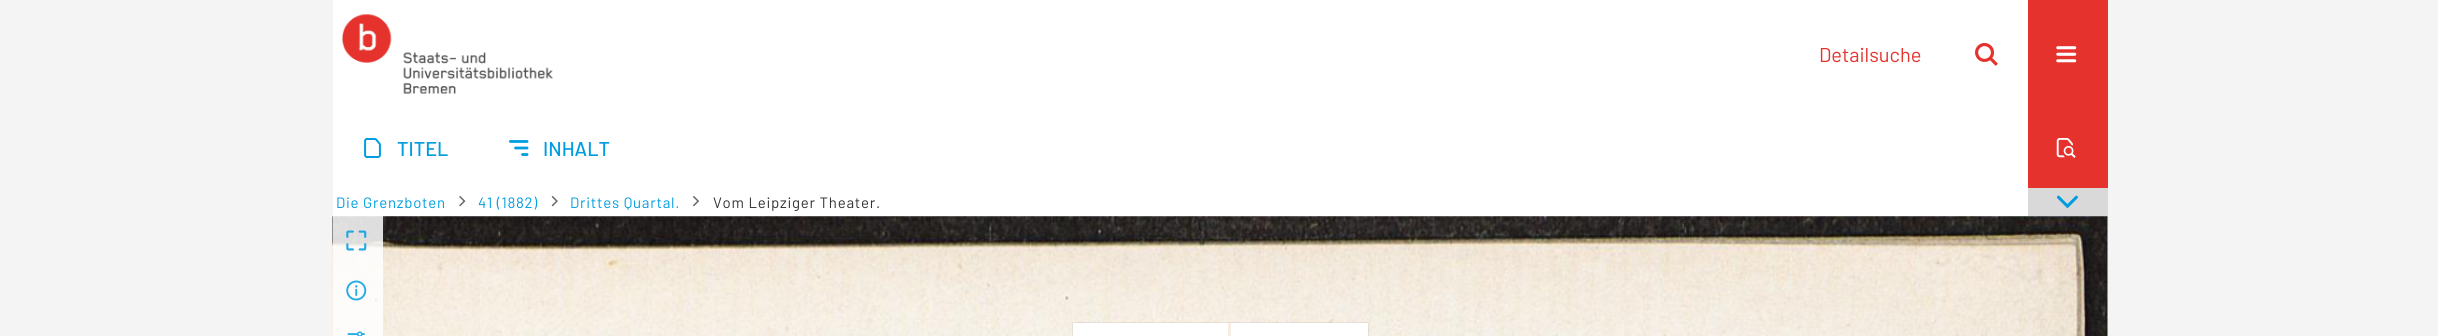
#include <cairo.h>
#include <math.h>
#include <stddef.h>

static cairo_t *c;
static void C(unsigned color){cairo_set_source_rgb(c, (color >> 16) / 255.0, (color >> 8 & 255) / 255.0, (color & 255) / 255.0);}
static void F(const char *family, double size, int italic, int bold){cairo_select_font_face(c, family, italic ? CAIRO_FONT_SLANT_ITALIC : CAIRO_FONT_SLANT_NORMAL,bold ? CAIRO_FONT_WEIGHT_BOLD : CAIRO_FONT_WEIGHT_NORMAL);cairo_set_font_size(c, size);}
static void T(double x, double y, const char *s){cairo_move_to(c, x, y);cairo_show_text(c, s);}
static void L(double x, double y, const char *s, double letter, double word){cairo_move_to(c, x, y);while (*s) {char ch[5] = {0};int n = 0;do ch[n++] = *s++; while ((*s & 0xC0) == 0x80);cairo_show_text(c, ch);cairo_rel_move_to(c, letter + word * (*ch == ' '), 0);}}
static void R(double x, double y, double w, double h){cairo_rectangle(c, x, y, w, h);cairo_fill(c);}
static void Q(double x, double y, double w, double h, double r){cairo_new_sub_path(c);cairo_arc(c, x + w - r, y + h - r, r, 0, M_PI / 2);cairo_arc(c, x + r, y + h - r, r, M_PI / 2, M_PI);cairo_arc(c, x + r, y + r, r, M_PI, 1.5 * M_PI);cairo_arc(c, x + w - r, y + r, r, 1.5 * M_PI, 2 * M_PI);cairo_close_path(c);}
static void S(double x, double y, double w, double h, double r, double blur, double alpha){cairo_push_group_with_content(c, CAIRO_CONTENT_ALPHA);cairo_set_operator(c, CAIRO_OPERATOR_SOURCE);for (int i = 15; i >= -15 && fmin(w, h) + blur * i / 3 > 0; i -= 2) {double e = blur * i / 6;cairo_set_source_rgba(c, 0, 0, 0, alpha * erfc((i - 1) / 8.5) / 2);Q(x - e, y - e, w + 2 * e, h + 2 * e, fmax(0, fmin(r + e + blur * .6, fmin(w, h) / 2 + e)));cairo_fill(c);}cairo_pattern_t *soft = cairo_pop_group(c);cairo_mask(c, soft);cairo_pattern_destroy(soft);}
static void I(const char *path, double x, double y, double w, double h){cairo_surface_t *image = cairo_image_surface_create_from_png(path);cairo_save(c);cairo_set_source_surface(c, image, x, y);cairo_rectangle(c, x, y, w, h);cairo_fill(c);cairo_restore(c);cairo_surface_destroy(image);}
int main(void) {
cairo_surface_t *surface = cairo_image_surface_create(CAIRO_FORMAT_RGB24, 2438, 336);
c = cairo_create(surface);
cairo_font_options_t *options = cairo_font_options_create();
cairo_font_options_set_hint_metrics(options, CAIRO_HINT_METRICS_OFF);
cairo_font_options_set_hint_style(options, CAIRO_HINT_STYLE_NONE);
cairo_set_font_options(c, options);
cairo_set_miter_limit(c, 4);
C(0xf4f4f4);
cairo_paint(c);
C(0xffffff);
R(333,0,1695,216);
I("1.png",341,14,212,80);
F("Barlow",20,0,0);
C(0xe5322d);
T(1819,62,"Detailsuche");
I("2.png",1975,43,23,23);
R(2028,0,80,188);
I("3.png",2056,46,21,17);
I("4.png",364,138,17,20);
F("Barlow Medium",20,0,0);
C(0x009de0);
T(397,156,"TITEL");
I("5.png",509,140,20,16);
T(543,156,"INHALT");
I("6.png",2056,138,20,20);
F("Barlow",15,0,0);
L(336,208,"Die Grenzboten",.75,0);
I("7.png",459,196,7,11);
L(478,208,"41 (1882)",.75,0);
I("8.png",551,196,7,11);
L(570,208,"Drittes Quartal.",.75,0);
I("9.png",693,196,7,11);
C(0x333333);
L(713,208,"Vom Leipziger Theater.",.75,0);
C(0xd9d9d9);
R(2028,188,80,28);
I("10.png",2057,195,21,14);
C(0xf0f0f0);
R(333,216,1775,120);
I("11.png",332,216,1776,120);
cairo_set_source_rgba(c,1,1,1,0.85);
R(333,216,50,50);
I("12.png",346,230,21,21);
R(333,266,50,50);
I("13.png",346,280,21,21);
R(333,316,50,20);
I("14.png",347,331,18,5);
cairo_save(c);
cairo_set_fill_rule(c,CAIRO_FILL_RULE_EVEN_ODD);
cairo_new_path(c);
cairo_move_to(c,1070,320);
cairo_line_to(c,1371,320);
cairo_line_to(c,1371,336);
cairo_line_to(c,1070,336);
cairo_close_path(c);
cairo_move_to(c,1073,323);
cairo_line_to(c,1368,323);
cairo_line_to(c,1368,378);
cairo_line_to(c,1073,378);
cairo_close_path(c);
cairo_clip(c);
C(0x000000);
S(1073,323,295,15,0,.5,.27);
cairo_restore(c);
C(0xffffff);
R(1073,323,155,13);
R(1231,323,137,13);
cairo_surface_write_to_png(surface, "o.png");
cairo_font_options_destroy(options);
cairo_destroy(c);
cairo_surface_destroy(surface);
return 0;
}
